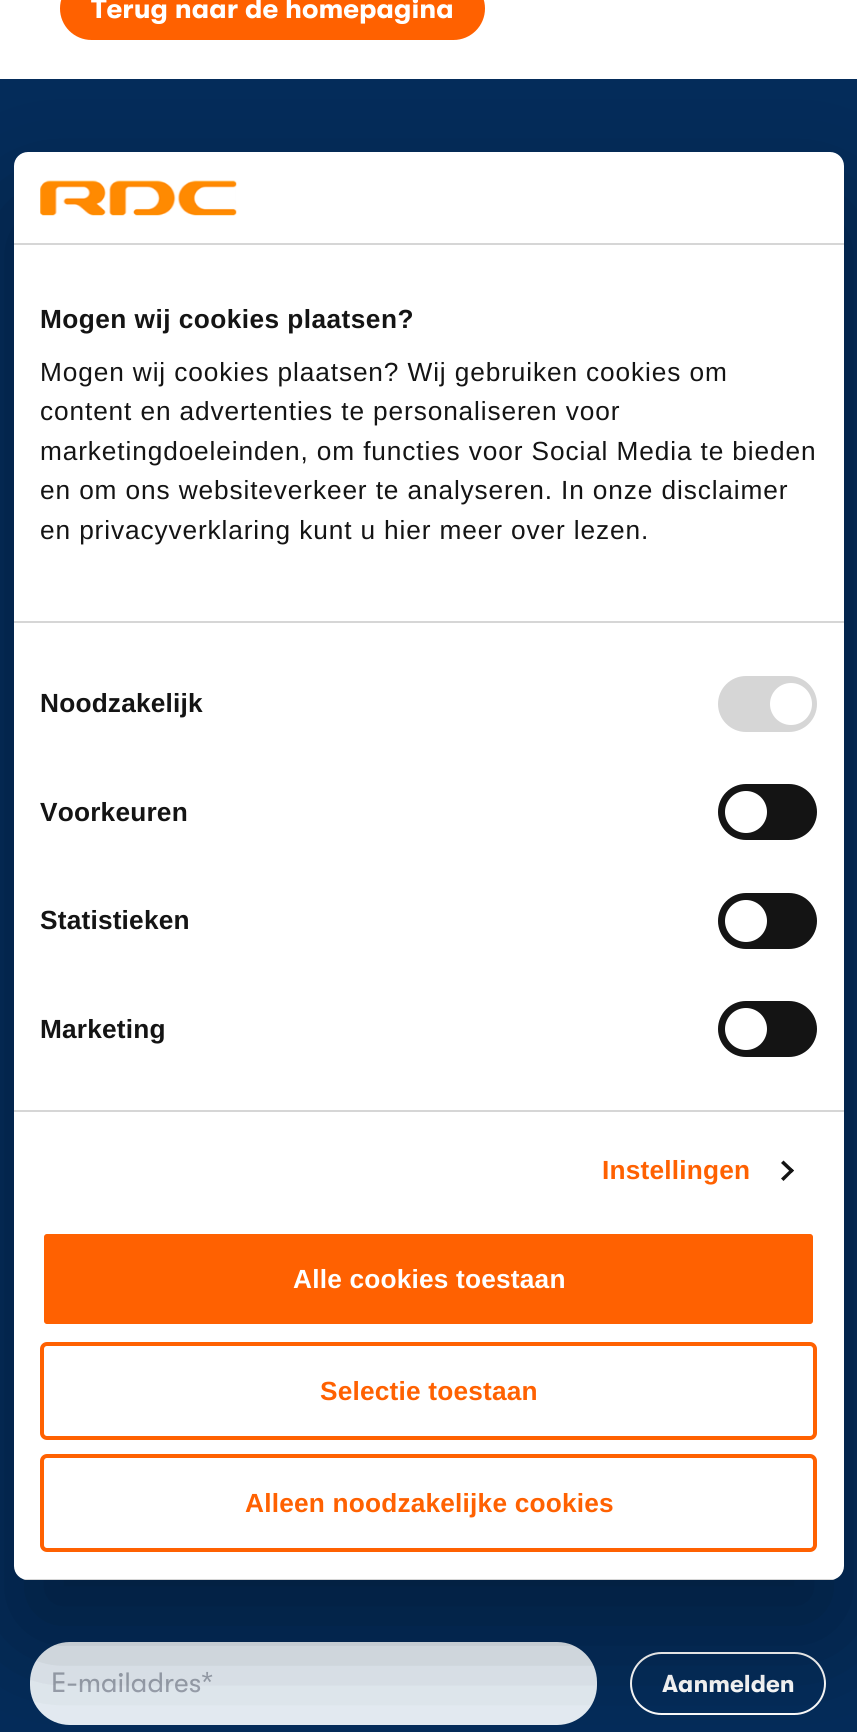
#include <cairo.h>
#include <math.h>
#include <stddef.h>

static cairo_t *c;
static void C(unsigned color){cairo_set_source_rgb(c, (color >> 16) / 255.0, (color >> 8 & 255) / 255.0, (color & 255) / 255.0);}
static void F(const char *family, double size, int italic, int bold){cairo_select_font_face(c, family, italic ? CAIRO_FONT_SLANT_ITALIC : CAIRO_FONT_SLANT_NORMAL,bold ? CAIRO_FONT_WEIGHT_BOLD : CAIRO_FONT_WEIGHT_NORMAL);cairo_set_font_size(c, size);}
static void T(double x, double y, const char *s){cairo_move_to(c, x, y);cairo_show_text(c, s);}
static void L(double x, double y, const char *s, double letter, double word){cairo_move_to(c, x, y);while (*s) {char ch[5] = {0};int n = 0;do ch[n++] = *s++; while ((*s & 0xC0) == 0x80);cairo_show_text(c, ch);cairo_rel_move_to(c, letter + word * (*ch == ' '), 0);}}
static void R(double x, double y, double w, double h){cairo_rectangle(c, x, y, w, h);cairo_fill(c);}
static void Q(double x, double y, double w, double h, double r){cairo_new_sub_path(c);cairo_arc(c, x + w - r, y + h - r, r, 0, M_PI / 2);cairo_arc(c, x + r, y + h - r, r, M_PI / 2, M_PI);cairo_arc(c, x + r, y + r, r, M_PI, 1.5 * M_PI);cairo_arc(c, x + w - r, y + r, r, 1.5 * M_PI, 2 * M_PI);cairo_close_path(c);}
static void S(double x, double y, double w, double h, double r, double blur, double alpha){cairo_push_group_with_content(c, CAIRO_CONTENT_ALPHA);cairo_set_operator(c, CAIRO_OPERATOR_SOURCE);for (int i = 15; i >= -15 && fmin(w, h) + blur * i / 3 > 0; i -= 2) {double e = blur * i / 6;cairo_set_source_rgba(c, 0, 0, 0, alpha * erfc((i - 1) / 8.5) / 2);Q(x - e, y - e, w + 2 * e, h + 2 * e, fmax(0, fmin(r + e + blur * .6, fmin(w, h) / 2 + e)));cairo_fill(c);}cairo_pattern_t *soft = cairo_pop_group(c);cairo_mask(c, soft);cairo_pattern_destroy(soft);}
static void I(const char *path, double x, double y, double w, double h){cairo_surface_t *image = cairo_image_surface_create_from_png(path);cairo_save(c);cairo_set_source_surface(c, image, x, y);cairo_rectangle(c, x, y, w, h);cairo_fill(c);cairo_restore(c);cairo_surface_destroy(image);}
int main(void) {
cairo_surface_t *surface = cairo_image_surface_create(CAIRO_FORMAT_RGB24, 857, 1732);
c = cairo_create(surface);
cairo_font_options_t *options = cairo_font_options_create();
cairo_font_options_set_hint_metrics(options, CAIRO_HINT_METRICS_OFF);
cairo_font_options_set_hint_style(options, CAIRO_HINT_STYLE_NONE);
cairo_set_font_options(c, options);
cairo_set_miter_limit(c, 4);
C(0xffffff);
cairo_paint(c);
C(0xff6100);
Q(60,-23,425,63,31.5);
cairo_fill(c);
F("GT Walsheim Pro",28,0,1);
C(0xffffff);
T(91,18,"Terug naar de homepagina");
C(0x042c5a);
R(0,79,857,1653);
C(0xe8f0f7);
Q(29,1641,569,85,41);
cairo_fill_preserve(c);
C(0x042c5a);
cairo_stroke(c);
F("GT Walsheim Pro",28,0,0);
C(0x9ca3af);
T(51,1692,"E-mailadres*");
Q(631,1653,194,61,30.5);
C(0xffffff);
cairo_stroke(c);
F("GT Walsheim Pro",24.5,0,1);
T(662,1692,"Aanmelden");
C(0x000000);
S(14,208,830,1428,14,59.5,.3);
C(0xffffff);
Q(14,152,830,1428,14);
cairo_fill(c);
C(0xd6d6d6);
R(14,243,830,2);
I("1.png",40,180,197,36);
R(14,621,830,2);
F("Liberation Sans",26.25,0,1);
C(0x141414);
L(40,328,"Mogen wij cookies plaatsen?",.45,0);
F("Liberation Sans",26.25,0,0);
L(40,381,"Mogen wij cookies plaatsen? Wij gebruiken cookies om",.88,0);
L(40,420,"content en advertenties te personaliseren voor",.88,0);
L(40,460,"marketingdoeleinden, om functies voor Social Media te bieden",.88,0);
L(40,499,"en om ons websiteverkeer te analyseren. In onze disclaimer",.88,0);
L(40,539,"en privacyverklaring kunt u hier meer over lezen.",.88,0);
C(0xd6d6d6);
R(14,1110,830,2);
F("Liberation Sans",26.25,0,1);
C(0x141414);
L(40,712,"Noodzakelijk",.2,0);
C(0xd6d6d6);
Q(718,676,99,56,28);
cairo_fill(c);
C(0xffffff);
cairo_arc(c,791,704,21,0,2 * M_PI);
cairo_fill(c);
C(0x141414);
L(40,821,"Voorkeuren",.2,0);
Q(718,784,99,56,28);
cairo_fill(c);
C(0xffffff);
cairo_arc(c,746,812,21,0,2 * M_PI);
cairo_fill(c);
C(0x141414);
L(40,929,"Statistieken",.2,0);
Q(718,893,99,56,28);
cairo_fill(c);
C(0xffffff);
cairo_arc(c,746,921,21,0,2 * M_PI);
cairo_fill(c);
C(0x141414);
L(40,1038,"Marketing",.2,0);
Q(718,1001,99,56,28);
cairo_fill(c);
C(0xffffff);
cairo_arc(c,746,1029,21,0,2 * M_PI);
cairo_fill(c);
C(0xff6101);
L(602,1179,"Instellingen",.2,0);
C(0x141414);
cairo_new_path(c);
cairo_move_to(c,783.5,1160.5);
cairo_line_to(c,794,1170.5);
cairo_line_to(c,791.5,1173);
cairo_line_to(c,781,1163);
cairo_close_path(c);
cairo_fill(c);
cairo_new_path(c);
cairo_move_to(c,791.5,1168.5);
cairo_line_to(c,794,1170.5);
cairo_line_to(c,783.5,1181);
cairo_line_to(c,781,1178.5);
cairo_close_path(c);
cairo_fill(c);
cairo_save(c);
Q(14,152,830,1428,14);
cairo_clip(c);
C(0xd6d6d6);
R(23,1579,812,1);
cairo_restore(c);
C(0xff6101);
Q(42,1232,773,94,5);
cairo_fill_preserve(c);
C(0xffffff);
cairo_set_line_width(c,4);
cairo_stroke(c);
L(293,1288,"Alle cookies toestaan",.2,0);
Q(42,1344,773,94,5);
C(0xff6101);
cairo_stroke(c);
L(320,1400,"Selectie toestaan",.2,0);
Q(42,1456,773,94,5);
cairo_stroke(c);
L(245,1512,"Alleen noodzakelijke cookies",.2,0);
cairo_surface_write_to_png(surface, "o.png");
cairo_font_options_destroy(options);
cairo_destroy(c);
cairo_surface_destroy(surface);
return 0;
}
